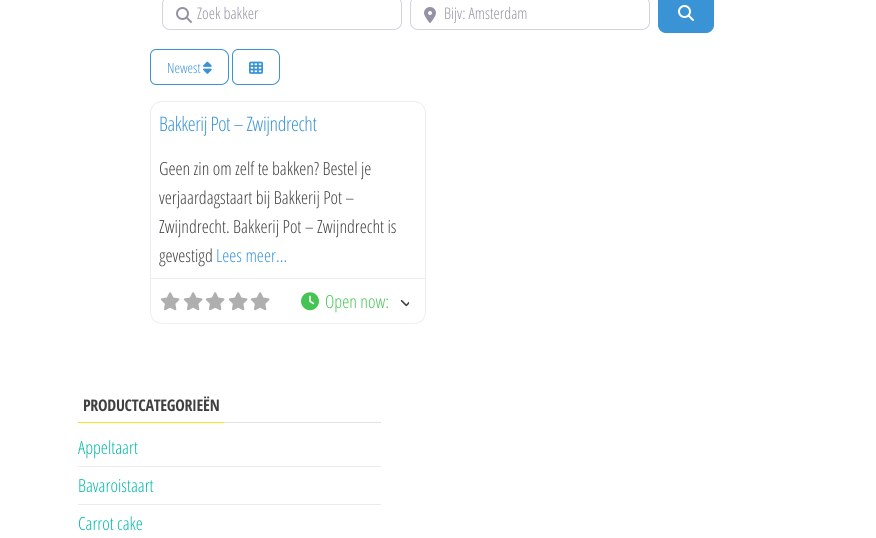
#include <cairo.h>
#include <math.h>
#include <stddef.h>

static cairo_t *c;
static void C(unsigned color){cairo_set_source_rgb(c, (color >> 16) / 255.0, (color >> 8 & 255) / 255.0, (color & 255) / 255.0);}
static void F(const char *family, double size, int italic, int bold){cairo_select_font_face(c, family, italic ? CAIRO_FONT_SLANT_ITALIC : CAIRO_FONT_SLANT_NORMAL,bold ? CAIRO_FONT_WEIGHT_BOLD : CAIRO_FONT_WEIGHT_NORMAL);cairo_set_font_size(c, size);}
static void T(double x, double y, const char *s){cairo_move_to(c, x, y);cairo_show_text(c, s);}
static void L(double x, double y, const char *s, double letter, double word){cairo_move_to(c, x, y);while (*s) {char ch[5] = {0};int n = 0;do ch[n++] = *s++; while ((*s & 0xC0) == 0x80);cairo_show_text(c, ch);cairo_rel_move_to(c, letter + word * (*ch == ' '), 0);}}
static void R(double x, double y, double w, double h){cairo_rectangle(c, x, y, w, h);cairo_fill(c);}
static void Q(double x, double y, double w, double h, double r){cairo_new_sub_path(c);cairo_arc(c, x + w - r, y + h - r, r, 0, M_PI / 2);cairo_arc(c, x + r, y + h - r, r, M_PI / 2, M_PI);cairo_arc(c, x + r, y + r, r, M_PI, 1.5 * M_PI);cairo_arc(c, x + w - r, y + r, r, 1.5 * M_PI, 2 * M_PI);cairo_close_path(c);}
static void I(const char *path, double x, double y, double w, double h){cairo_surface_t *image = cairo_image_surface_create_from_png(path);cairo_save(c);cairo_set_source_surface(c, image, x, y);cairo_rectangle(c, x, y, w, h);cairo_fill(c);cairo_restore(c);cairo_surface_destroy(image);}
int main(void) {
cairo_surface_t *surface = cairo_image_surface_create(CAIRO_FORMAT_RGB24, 876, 538);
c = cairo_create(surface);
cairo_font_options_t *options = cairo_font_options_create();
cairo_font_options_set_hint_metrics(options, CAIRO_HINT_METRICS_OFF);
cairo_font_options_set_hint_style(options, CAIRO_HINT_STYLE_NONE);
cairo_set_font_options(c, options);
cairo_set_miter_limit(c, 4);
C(0xffffff);
cairo_paint(c);
Q(162.5,-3.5,239,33,7.5);
C(0xd5d2dc);
cairo_set_line_width(c,1);
cairo_stroke(c);
I("1.png",176,7,16,16);
F("Open Sans Condensed Light",16,0,0);
C(0x9691a4);
T(197,19,"Zoek bakker");
Q(410.5,-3.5,239,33,7.5);
C(0xd5d2dc);
cairo_stroke(c);
I("2.png",424,7,12,16);
C(0x9691a4);
T(444,19,"Bijv: Amsterdam");
C(0x3993d5);
Q(658.5,-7.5,55,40,7.5);
cairo_fill_preserve(c);
cairo_stroke(c);
I("3.png",678,5,16,16);
cairo_new_path(c);
cairo_move_to(c,156,49.5);
cairo_line_to(c,221,49.5);
cairo_curve_to(c,225,49.5,228.5,53,228.5,57);
cairo_line_to(c,228.5,77);
cairo_curve_to(c,228.5,81,225,84.5,221,84.5);
cairo_line_to(c,156,84.5);
cairo_curve_to(c,153,84.5,150.5,82,150.5,79);
cairo_line_to(c,150.5,55);
cairo_curve_to(c,150.5,52,153,49.5,156,49.5);
cairo_close_path(c);
cairo_stroke(c);
F("Open Sans Condensed Light",14,0,0);
T(167,73,"Newest");
I("4.png",203,61,9,13);
cairo_new_path(c);
cairo_move_to(c,238,49.5);
cairo_line_to(c,272,49.5);
cairo_curve_to(c,276,49.5,279.5,53,279.5,57);
cairo_line_to(c,279.5,77);
cairo_curve_to(c,279.5,81,276,84.5,272,84.5);
cairo_line_to(c,238,84.5);
cairo_curve_to(c,235,84.5,232.5,82,232.5,79);
cairo_line_to(c,232.5,55);
cairo_curve_to(c,232.5,52,235,49.5,238,49.5);
cairo_close_path(c);
cairo_stroke(c);
I("5.png",249,61,14,13);
Q(150.5,101.5,275,222,11.5);
C(0xefecf3);
cairo_stroke(c);
F("Open Sans Condensed Light",20,0,0);
C(0x3993d5);
L(159,131,"Bakkerij Pot – Zwijndrecht",-.4,0);
F("Open Sans Condensed Light",18,0,0);
C(0x404040);
T(159,175,"Geen zin om zelf te bakken? Bestel je");
T(159,204,"verjaardagstaart bij Bakkerij Pot –");
T(159,233,"Zwijndrecht. Bakkerij Pot – Zwijndrecht is");
T(159,262,"gevestigd");
C(0x3993d5);
T(216,262,"Lees meer…");
C(0xefecf3);
R(151,278,274,1);
I("6.png",160,292,20,19);
I("6.png",183,292,20,19);
I("6.png",205,292,20,19);
I("6.png",228,292,20,19);
I("6.png",250,292,20,19);
I("7.png",301,292,18,19);
C(0x44c553);
T(325,308,"Open now:");
I("8.png",400,300,9,7);
C(0xe2e2e2);
R(224,422,157,1);
F("Open Sans Condensed",16,0,1);
C(0x404040);
L(83,411,"PRODUCTCATEGORIEËN",-.3,0);
C(0xffdd22);
R(78,422,146,1);
C(0xebebeb);
R(78,466,303,1);
F("Open Sans Condensed Light",18,0,0);
C(0x00b9a9);
T(78,454,"Appeltaart");
C(0xebebeb);
R(78,504,303,1);
C(0x00b9a9);
T(78,492,"Bavaroistaart");
T(78,530,"Carrot cake");
cairo_surface_write_to_png(surface, "o.png");
cairo_font_options_destroy(options);
cairo_destroy(c);
cairo_surface_destroy(surface);
return 0;
}
